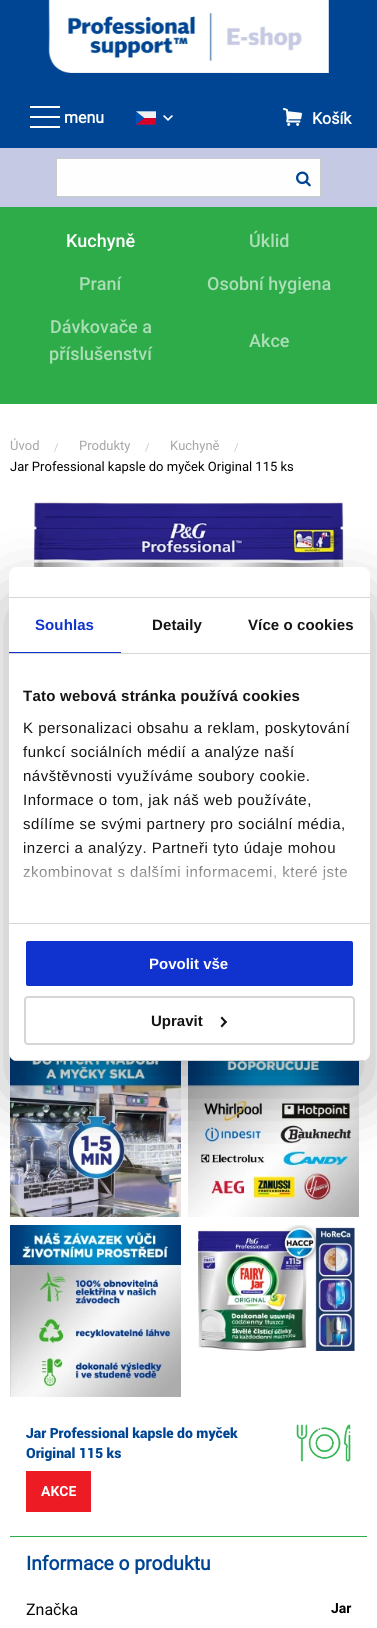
#include <cairo.h>
#include <math.h>
#include <stddef.h>

static cairo_t *c;
static void C(unsigned color){cairo_set_source_rgb(c, (color >> 16) / 255.0, (color >> 8 & 255) / 255.0, (color & 255) / 255.0);}
static void F(const char *family, double size, int italic, int bold){cairo_select_font_face(c, family, italic ? CAIRO_FONT_SLANT_ITALIC : CAIRO_FONT_SLANT_NORMAL,bold ? CAIRO_FONT_WEIGHT_BOLD : CAIRO_FONT_WEIGHT_NORMAL);cairo_set_font_size(c, size);}
static void T(double x, double y, const char *s){cairo_move_to(c, x, y);cairo_show_text(c, s);}
static void L(double x, double y, const char *s, double letter, double word){cairo_move_to(c, x, y);while (*s) {char ch[5] = {0};int n = 0;do ch[n++] = *s++; while ((*s & 0xC0) == 0x80);cairo_show_text(c, ch);cairo_rel_move_to(c, letter + word * (*ch == ' '), 0);}}
static void R(double x, double y, double w, double h){cairo_rectangle(c, x, y, w, h);cairo_fill(c);}
static void Q(double x, double y, double w, double h, double r){cairo_new_sub_path(c);cairo_arc(c, x + w - r, y + h - r, r, 0, M_PI / 2);cairo_arc(c, x + r, y + h - r, r, M_PI / 2, M_PI);cairo_arc(c, x + r, y + r, r, M_PI, 1.5 * M_PI);cairo_arc(c, x + w - r, y + r, r, 1.5 * M_PI, 2 * M_PI);cairo_close_path(c);}
static void S(double x, double y, double w, double h, double r, double blur, double alpha){cairo_push_group_with_content(c, CAIRO_CONTENT_ALPHA);cairo_set_operator(c, CAIRO_OPERATOR_SOURCE);for (int i = 15; i >= -15 && fmin(w, h) + blur * i / 3 > 0; i -= 2) {double e = blur * i / 6;cairo_set_source_rgba(c, 0, 0, 0, alpha * erfc((i - 1) / 8.5) / 2);Q(x - e, y - e, w + 2 * e, h + 2 * e, fmax(0, fmin(r + e + blur * .6, fmin(w, h) / 2 + e)));cairo_fill(c);}cairo_pattern_t *soft = cairo_pop_group(c);cairo_mask(c, soft);cairo_pattern_destroy(soft);}
static void I(const char *path, double x, double y, double w, double h){cairo_surface_t *image = cairo_image_surface_create_from_png(path);cairo_save(c);cairo_set_source_surface(c, image, x, y);cairo_rectangle(c, x, y, w, h);cairo_fill(c);cairo_restore(c);cairo_surface_destroy(image);}
int main(void) {
cairo_surface_t *surface = cairo_image_surface_create(CAIRO_FORMAT_RGB24, 377, 1628);
c = cairo_create(surface);
cairo_font_options_t *options = cairo_font_options_create();
cairo_font_options_set_hint_metrics(options, CAIRO_HINT_METRICS_OFF);
cairo_font_options_set_hint_style(options, CAIRO_HINT_STYLE_NONE);
cairo_set_font_options(c, options);
cairo_set_miter_limit(c, 4);
cairo_pattern_t *gradient;
C(0xffffff);
cairo_paint(c);
C(0x004593);
R(0,0,377,148);
I("1.png",48,0,281,73);
C(0xfefefe);
R(30,126,30,2);
R(30,116,30,2);
R(30,106,30,2);
F("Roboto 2",16,0,1);
C(0xffffff);
T(64,123,"menu");
I("2.png",163,115,10,6);
I("3.png",136,111,20,14);
I("4.png",283,108,19,18);
T(312,124,"Košík");
C(0xc5c9e4);
R(0,148,377,59);
C(0xfefefe);
cairo_rectangle(c,56.5,158.5,264,38);
cairo_fill_preserve(c);
C(0xcacaca);
cairo_set_line_width(c,1);
cairo_stroke(c);
I("5.png",296,171,15,16);
C(0x2eac49);
R(0,207,377,197);
F("Roboto Medium",18,0,0);
C(0xffffff);
T(66,247,"Kuchyně");
C(0xabdeb6);
T(249,247,"Úklid");
T(79,290,"Praní");
T(207,290,"Osobní hygiena");
T(50,333,"Dávkovače a");
T(49,360,"příslušenství");
T(249,347,"Akce");
F("Roboto",13,0,0);
C(0xa6a6a6);
T(10,450,"Úvod");
F("Roboto",11,0,0);
C(0xcacaca);
T(54,451,"/");
F("Roboto",13,0,0);
C(0xa6a6a6);
T(79,450,"Produkty");
F("Roboto",11,0,0);
C(0xcacaca);
T(145,451,"/");
F("Roboto",13,0,0);
C(0xa6a6a6);
T(170,450,"Kuchyně");
F("Roboto",11,0,0);
C(0xcacaca);
T(234,451,"/");
F("Roboto",13,0,0);
C(0x000000);
T(10,471,"Jar Professional kapsle do myček Original 115 ks");
I("6.png",33,502,311,65);
I("7.png",10,1056,171,161);
I("8.png",188,1061,171,156);
I("9.png",10,1225,171,172);
I("10.png",198,1225,157,126);
C(0x2eac49);
R(10,1536,357,1);
F("Roboto Black",14,0,0);
C(0x004594);
T(26,1438,"Jar Professional kapsle do myček");
T(26,1458,"Original 115 ks");
C(0xed1c24);
R(26,1471,65,41);
F("Roboto",14,0,1);
C(0xffffff);
T(41,1496,"AKCE");
I("11.png",296,1424,55,38);
F("Roboto 2",19.25,0,1);
C(0x004594);
T(26,1570,"Informace o produktu");
F("Roboto",16,0,0);
C(0x0a0a0a);
T(26,1615,"Značka");
F("Roboto",14,0,1);
C(0x000000);
T(331,1613,"Jar");
C(0x000000);
S(9,599,361,494,8,34,.3);
C(0xffffff);
Q(9,567,361,494,8);
cairo_fill(c);
C(0xd6d6d6);
R(9,597,361,1);
R(9,653,361,1);
C(0x1032cf);
R(9,652,112,1);
F("Liberation Sans",15,0,1);
L(35,630,"Souhlas",.1,0);
C(0x141414);
L(152,630,"Detaily",.1,0);
L(248,630,"Více o cookies",.1,0);
C(0xd6d6d6);
R(9,923,361,1);
C(0x141414);
L(23,701,"Tato webová stránka používá cookies",.25,0);
F("Liberation Sans",15,0,0);
L(23,733,"K personalizaci obsahu a reklam, poskytování",.5,0);
L(23,757,"funkcí sociálních médií a analýze naší",.5,0);
L(23,781,"návštěvnosti využíváme soubory cookie.",.5,0);
L(23,805,"Informace o tom, jak náš web používáte,",.5,0);
L(23,829,"sdílíme se svými partnery pro sociální média,",.5,0);
L(23,853,"inzerci a analýzy. Partneři tyto údaje mohou",.5,0);
L(23,877,"zkombinovat s dalšími informacemi, které jste",.5,0);
gradient = cairo_pattern_create_linear(183,923,183,848);
cairo_pattern_add_color_stop_rgba(gradient,0,1,1,1,1);
cairo_pattern_add_color_stop_rgba(gradient,.5,1,1,1,.8);
cairo_pattern_add_color_stop_rgba(gradient,1,1,1,1,0);
cairo_set_source(c,gradient);
cairo_pattern_destroy(gradient);
R(23,849,324,32);
cairo_save(c);
Q(9,567,361,494,8);
cairo_clip(c);
C(0xd6d6d6);
R(9,1060,361,1);
cairo_restore(c);
C(0x1032cf);
Q(25,940,329,47,3);
cairo_fill_preserve(c);
C(0xffffff);
cairo_set_line_width(c,2);
cairo_stroke(c);
F("Liberation Sans",15,0,1);
T(149,969,"Povolit vše");
Q(25,997,329,47,3);
C(0xd6d6d6);
cairo_stroke(c);
C(0x141414);
T(151,1026,"Upravit");
cairo_new_path(c);
cairo_move_to(c,222,1016.5);
cairo_line_to(c,227,1022);
cairo_line_to(c,225.5,1023.5);
cairo_line_to(c,220.5,1018);
cairo_close_path(c);
cairo_fill(c);
cairo_new_path(c);
cairo_move_to(c,225.5,1020.5);
cairo_line_to(c,227,1022);
cairo_line_to(c,222,1027.5);
cairo_line_to(c,220.5,1026);
cairo_close_path(c);
cairo_fill(c);
cairo_surface_write_to_png(surface, "o.png");
cairo_font_options_destroy(options);
cairo_destroy(c);
cairo_surface_destroy(surface);
return 0;
}
